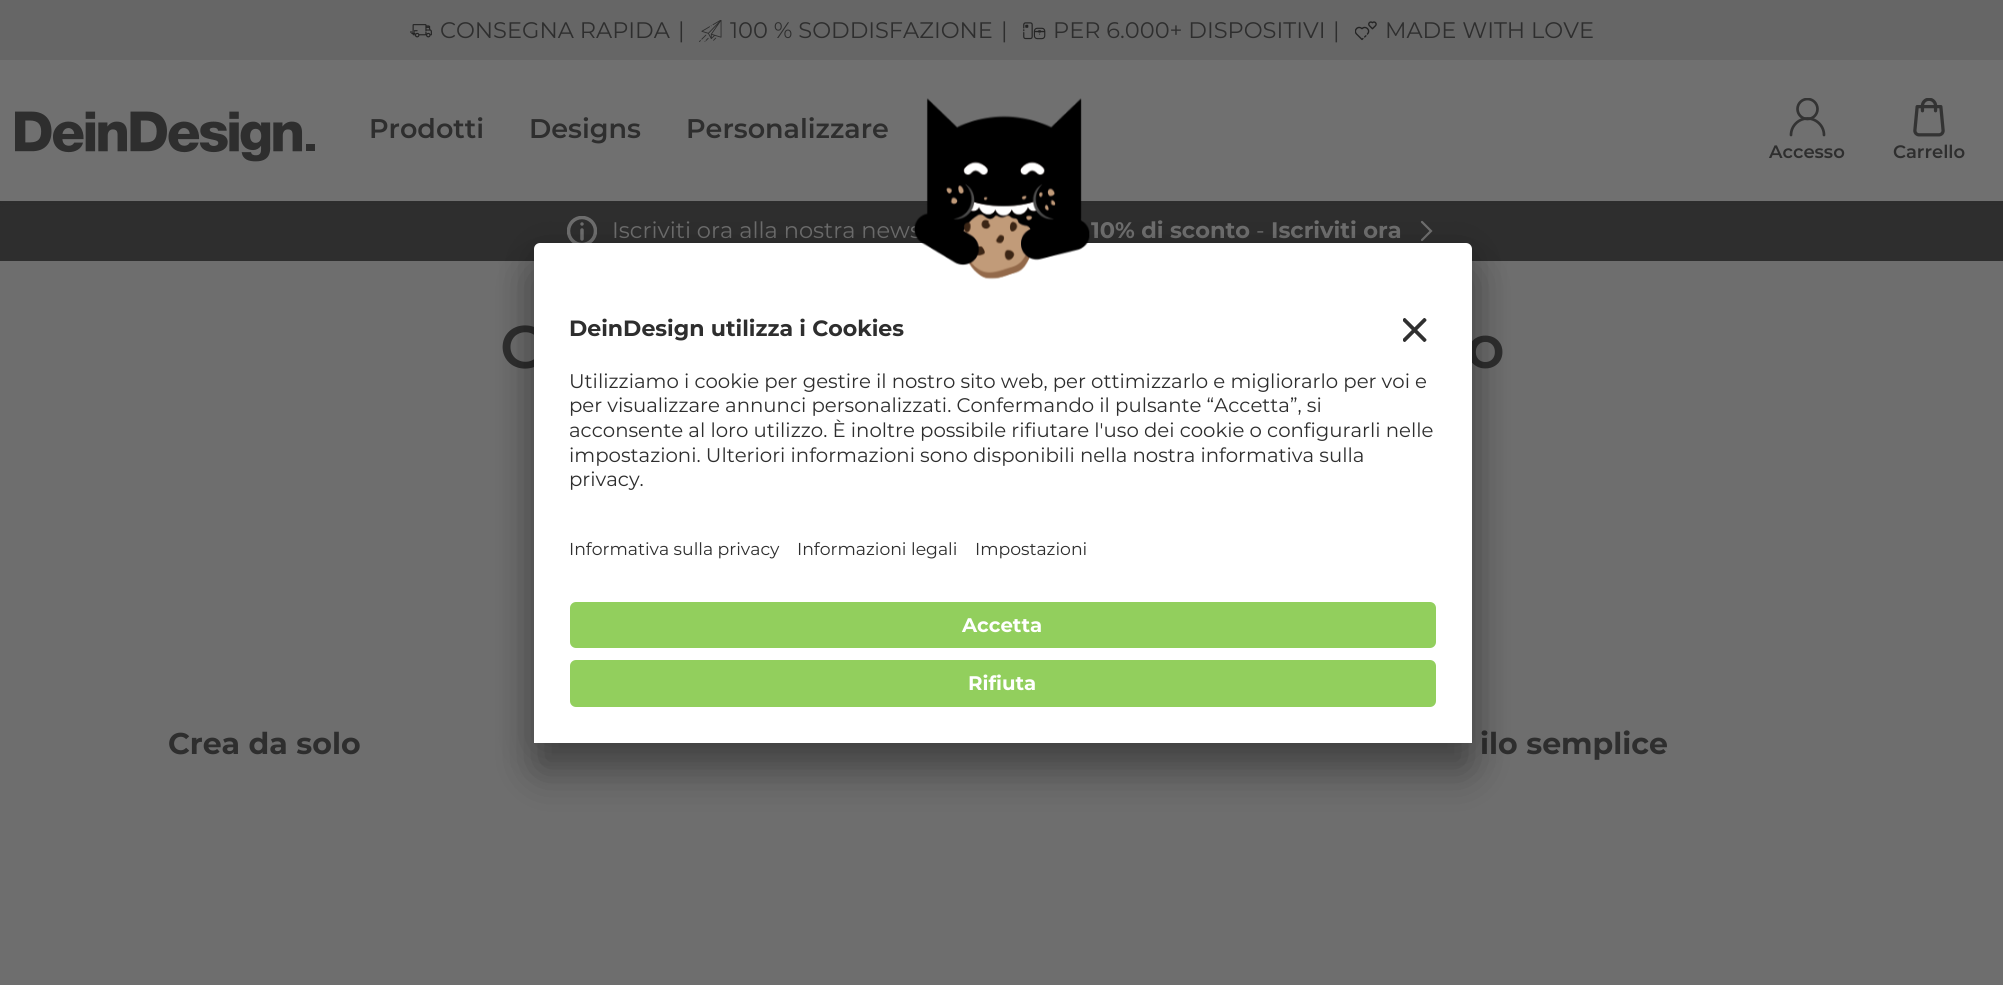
#include <cairo.h>
#include <math.h>
#include <stddef.h>

static cairo_t *c;
static void C(unsigned color){cairo_set_source_rgb(c, (color >> 16) / 255.0, (color >> 8 & 255) / 255.0, (color & 255) / 255.0);}
static void F(const char *family, double size, int italic, int bold){cairo_select_font_face(c, family, italic ? CAIRO_FONT_SLANT_ITALIC : CAIRO_FONT_SLANT_NORMAL,bold ? CAIRO_FONT_WEIGHT_BOLD : CAIRO_FONT_WEIGHT_NORMAL);cairo_set_font_size(c, size);}
static void T(double x, double y, const char *s){cairo_move_to(c, x, y);cairo_show_text(c, s);}
static void R(double x, double y, double w, double h){cairo_rectangle(c, x, y, w, h);cairo_fill(c);}
static void Q(double x, double y, double w, double h, double r){cairo_new_sub_path(c);cairo_arc(c, x + w - r, y + h - r, r, 0, M_PI / 2);cairo_arc(c, x + r, y + h - r, r, M_PI / 2, M_PI);cairo_arc(c, x + r, y + r, r, M_PI, 1.5 * M_PI);cairo_arc(c, x + w - r, y + r, r, 1.5 * M_PI, 2 * M_PI);cairo_close_path(c);}
static void S(double x, double y, double w, double h, double r, double blur, double alpha){cairo_push_group_with_content(c, CAIRO_CONTENT_ALPHA);cairo_set_operator(c, CAIRO_OPERATOR_SOURCE);for (int i = 15; i >= -15 && fmin(w, h) + blur * i / 3 > 0; i -= 2) {double e = blur * i / 6;cairo_set_source_rgba(c, 0, 0, 0, alpha * erfc((i - 1) / 8.5) / 2);Q(x - e, y - e, w + 2 * e, h + 2 * e, fmax(0, fmin(r + e + blur * .6, fmin(w, h) / 2 + e)));cairo_fill(c);}cairo_pattern_t *soft = cairo_pop_group(c);cairo_mask(c, soft);cairo_pattern_destroy(soft);}
static void I(const char *path, double x, double y, double w, double h){cairo_surface_t *image = cairo_image_surface_create_from_png(path);cairo_save(c);cairo_set_source_surface(c, image, x, y);cairo_rectangle(c, x, y, w, h);cairo_fill(c);cairo_restore(c);cairo_surface_destroy(image);}
int main(void) {
cairo_surface_t *surface = cairo_image_surface_create(CAIRO_FORMAT_RGB24, 2003, 985);
c = cairo_create(surface);
cairo_font_options_t *options = cairo_font_options_create();
cairo_font_options_set_hint_metrics(options, CAIRO_HINT_METRICS_OFF);
cairo_font_options_set_hint_style(options, CAIRO_HINT_STYLE_NONE);
cairo_set_font_options(c, options);
cairo_set_miter_limit(c, 4);
C(0x6e6e6e);
cairo_paint(c);
C(0x2e2e2e);
R(0,201,2003,60);
C(0x242424);
S(0,60,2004,141,0,4.5,.16);
C(0x666666);
R(0,0,2003,60);
I("1.png",410,24,22,14);
F("Montserrat",22.5,0,0);
C(0x2e2e2e);
T(440,38,"CONSEGNA RAPIDA");
T(678,38,"|");
I("2.png",699,20,23,22);
T(730,38,"100 % SODDISFAZIONE");
T(1001,38,"|");
I("3.png",1023,22,23,18);
T(1053,38,"PER 6.000+ DISPOSITIVI");
T(1333,38,"|");
I("4.png",1355,21,22,20);
T(1385,38,"MADE WITH LOVE");
C(0x707070);
R(0,60,2003,141);
I("5.png",15,111,300,51);
F("Montserrat SemiBold",27,0,0);
C(0x2e2e2e);
T(369,138,"Prodotti");
T(529,138,"Designs");
T(686,138,"Personalizzare");
cairo_save(c);
cairo_rectangle(c,1788,98,39,39);
cairo_clip(c);
cairo_arc(c,1807.5,109,10,0,2 * M_PI);
C(0x333333);
cairo_set_line_width(c,2.7);
cairo_stroke(c);
cairo_restore(c);
cairo_new_path(c);
cairo_move_to(c,1791,135);
cairo_curve_to(c,1791,126,1798.5,118.5,1807.5,118.5);
cairo_curve_to(c,1816.5,118.5,1824,126,1824,135);
C(0x333333);
cairo_set_line_width(c,2.7);
cairo_set_line_cap(c,CAIRO_LINE_CAP_ROUND);
cairo_stroke(c);
F("Montserrat SemiBold",18,0,0);
C(0x2e2e2e);
T(1769,158,"Accesso");
I("6.png",1913,98,32,39);
T(1893,158,"Carrello");
cairo_save(c);
cairo_rectangle(c,567,216,30,30);
cairo_clip(c);
cairo_arc(c,582,231,13.5,0,2 * M_PI);
C(0x6e6e6e);
cairo_set_line_width(c,3.5);
cairo_set_line_cap(c,CAIRO_LINE_CAP_BUTT);
cairo_stroke(c);
cairo_restore(c);
cairo_new_path(c);
cairo_move_to(c,582,224);
cairo_line_to(c,582,224);
cairo_move_to(c,582,230);
cairo_line_to(c,582,239);
C(0x6e6e6e);
cairo_set_line_width(c,3.5);
cairo_stroke(c);
F("Montserrat",22.5,0,0);
T(612,238,"Iscriviti ora alla nostra news");
F("Montserrat",22.5,0,1);
T(1091,238,"10% di sconto");
F("Montserrat",22.5,0,0);
T(1256,238,"-");
F("Montserrat",22.5,0,1);
T(1271,238,"Iscriviti ora");
cairo_new_path(c);
cairo_move_to(c,1422,240);
cairo_line_to(c,1431,231);
cairo_line_to(c,1422,222);
cairo_set_line_width(c,2.2);
cairo_stroke(c);
F("Montserrat SemiBold",60,0,0);
C(0x2e2e2e);
T(500,368,"C");
T(1466,368,"o");
F("Montserrat",30,0,1);
T(168,754,"Crea da solo");
T(1480,754,"ilo semplice");
C(0x000000);
S(534,273,938,500,6,21,.3);
S(534,251,938,499,6,19.5,.22);
C(0xffffff);
Q(534,243,938,500,6);
cairo_fill(c);
I("7.png",914,98,176,182);
F("Montserrat",22.1,0,1);
C(0x2e2e2e);
T(569,336,"DeinDesign utilizza i Cookies");
I("8.png",1403,318,24,24);
F("Montserrat",19.7,0,0);
T(569,388,"Utilizziamo i cookie per gestire il nostro sito web, per ottimizzarlo e migliorarlo per voi e");
T(569,412,"per visualizzare annunci personalizzati. Confermando il pulsante “Accetta”, si");
T(569,437,"acconsente al loro utilizzo. È inoltre possibile rifiutare l'uso dei cookie o configurarli nelle");
T(569,462,"impostazioni. Ulteriori informazioni sono disponibili nella nostra informativa sulla");
T(569,486,"privacy.");
F("Montserrat",17.25,0,0);
T(569,555,"Informativa sulla privacy");
T(797,555,"Informazioni legali");
T(975,555,"Impostazioni");
C(0xffffff);
R(534,737,938,6);
C(0x92cf5d);
Q(570,602,866,46,6);
cairo_fill(c);
F("Montserrat",19.7,0,1);
C(0xffffff);
T(962,632,"Accetta");
C(0x92cf5d);
Q(570,660,866,47,6);
cairo_fill(c);
C(0xffffff);
T(968,690,"Rifiuta");
cairo_surface_write_to_png(surface, "o.png");
cairo_font_options_destroy(options);
cairo_destroy(c);
cairo_surface_destroy(surface);
return 0;
}
